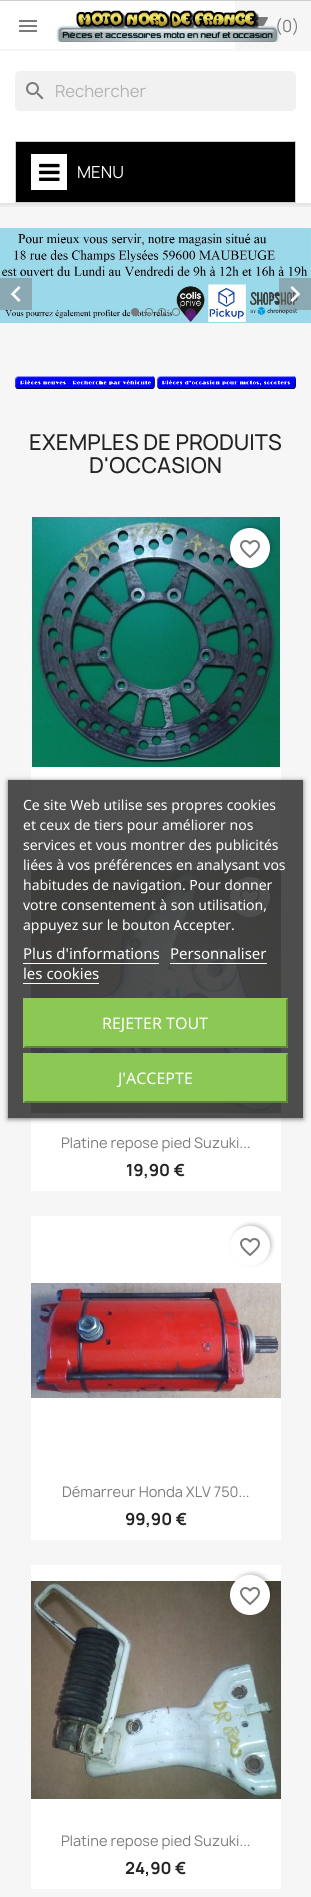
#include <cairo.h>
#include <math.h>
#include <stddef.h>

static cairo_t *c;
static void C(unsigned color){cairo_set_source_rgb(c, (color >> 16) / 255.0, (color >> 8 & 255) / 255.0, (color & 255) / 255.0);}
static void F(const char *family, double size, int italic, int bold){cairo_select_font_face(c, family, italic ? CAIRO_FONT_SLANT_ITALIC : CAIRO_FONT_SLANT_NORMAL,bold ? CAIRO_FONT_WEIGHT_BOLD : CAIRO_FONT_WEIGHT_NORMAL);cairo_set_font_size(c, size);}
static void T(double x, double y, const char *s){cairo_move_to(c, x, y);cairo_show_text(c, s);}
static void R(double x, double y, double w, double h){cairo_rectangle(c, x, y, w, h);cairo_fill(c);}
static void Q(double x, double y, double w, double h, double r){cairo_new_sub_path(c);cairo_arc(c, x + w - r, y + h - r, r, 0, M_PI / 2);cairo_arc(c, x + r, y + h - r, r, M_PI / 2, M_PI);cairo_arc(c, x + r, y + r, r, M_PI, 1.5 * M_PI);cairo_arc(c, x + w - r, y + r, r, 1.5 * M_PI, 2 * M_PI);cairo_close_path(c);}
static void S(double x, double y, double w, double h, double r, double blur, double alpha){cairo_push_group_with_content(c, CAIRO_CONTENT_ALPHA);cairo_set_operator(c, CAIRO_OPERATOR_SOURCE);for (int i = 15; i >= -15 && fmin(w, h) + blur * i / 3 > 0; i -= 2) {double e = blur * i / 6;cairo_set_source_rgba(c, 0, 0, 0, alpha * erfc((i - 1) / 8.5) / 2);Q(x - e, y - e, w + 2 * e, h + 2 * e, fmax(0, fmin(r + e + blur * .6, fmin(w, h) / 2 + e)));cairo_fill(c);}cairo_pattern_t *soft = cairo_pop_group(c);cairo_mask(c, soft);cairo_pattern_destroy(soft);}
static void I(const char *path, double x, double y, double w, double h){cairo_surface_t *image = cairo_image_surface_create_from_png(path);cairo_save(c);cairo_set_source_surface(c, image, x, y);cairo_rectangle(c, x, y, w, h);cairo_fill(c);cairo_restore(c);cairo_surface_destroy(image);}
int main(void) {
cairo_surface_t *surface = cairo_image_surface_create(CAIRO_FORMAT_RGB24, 311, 1897);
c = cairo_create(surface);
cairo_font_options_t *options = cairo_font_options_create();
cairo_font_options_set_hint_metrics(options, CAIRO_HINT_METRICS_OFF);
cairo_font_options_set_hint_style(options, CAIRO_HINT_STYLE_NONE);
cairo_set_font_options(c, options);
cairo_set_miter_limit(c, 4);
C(0xffffff);
cairo_paint(c);
C(0xcecece);
R(0,0,311,1);
C(0xf6f6f6);
R(0,203,311,1694);
cairo_save(c);
cairo_rectangle(c,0,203,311,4);
cairo_clip(c);
C(0x000000);
S(0,3,311,202,0,2.5,.11);
cairo_restore(c);
R(0,49,311,2);
I("1.png",19,20,18,12);
R(235,1,76,48);
I("3.png",252,17,16,12);
F("Manrope",16,0,0);
C(0x7a7a7a);
T(275,32,"(0)");
I("4.png",201,27,14,2);
I("2.png",56,10,224,32);
C(0xf1f1f1);
Q(15,71,281,40,5);
cairo_fill(c);
I("5.png",26,82,18,18);
C(0xb1b1b1);
T(55,97,"Rechercher");
C(0x000000);
cairo_rectangle(c,15.5,141.5,280,61);
cairo_fill_preserve(c);
C(0xcecece);
cairo_set_line_width(c,1);
cairo_stroke(c);
C(0xffffff);
R(31,154,36,36);
I("6.png",39,163,21,18);
T(77,178,"MENU");
I("7.png",0,228,311,95);
cairo_set_source_rgba(c,0.478,0.478,0.478,0.5);
R(0,278,32,32);
I("8.png",10,286,11,16);
R(279,278,32,32);
I("9.png",290,286,11,16);
C(0x7a7a7a);
cairo_arc(c,135,312,3.5,0,2 * M_PI);
cairo_fill_preserve(c);
cairo_stroke(c);
cairo_arc(c,149,312,3.5,0,2 * M_PI);
cairo_stroke(c);
cairo_arc(c,162,312,3.5,0,2 * M_PI);
cairo_stroke(c);
cairo_arc(c,176,312,3.5,0,2 * M_PI);
cairo_stroke(c);
I("10.png",15,376,140,13);
I("11.png",157,376,139,13);
F("Manrope Medium",21,0,0);
C(0x232323);
T(29,450,"EXEMPLES DE PRODUITS");
T(89,473,"D'OCCASION");
C(0xffffff);
R(31,767,250,75);
I("12.png",31,517,250,250);
C(0x000000);
S(232,526,40,40,20,2,.2);
C(0xffffff);
cairo_arc(c,250,548,20,0,2 * M_PI);
cairo_fill(c);
I("13.png",240,540,20,19);
R(31,1115,250,76);
I("14.png",31,867,250,248);
C(0x000000);
S(232,875,40,40,20,2,.2);
C(0xffffff);
cairo_arc(c,250,897,20,0,2 * M_PI);
cairo_fill(c);
I("13.png",240,889,20,19);
F("Manrope",14,0,0);
C(0x7a7a7a);
T(61,1148,"Platine repose pied Suzuki...");
F("Manrope",16,0,1);
C(0x232323);
T(126,1176,"19,90 €");
C(0xffffff);
R(31,1216,250,324);
C(0x000000);
S(232,1224,40,40,20,2,.2);
C(0xffffff);
cairo_arc(c,250,1246,20,0,2 * M_PI);
cairo_fill(c);
I("13.png",240,1238,20,19);
I("15.png",31,1280,250,120);
F("Manrope",14,0,0);
C(0x7a7a7a);
T(62,1497,"Démarreur Honda XLV 750...");
F("Manrope",16,0,1);
C(0x232323);
T(125,1525,"99,90 €");
C(0xffffff);
R(31,1565,250,324);
I("16.png",31,1580,250,222);
C(0x000000);
S(232,1573,40,40,20,2,.2);
C(0xffffff);
cairo_arc(c,250,1595,20,0,2 * M_PI);
cairo_fill(c);
I("13.png",240,1587,20,19);
F("Manrope",14,0,0);
C(0x7a7a7a);
T(61,1846,"Platine repose pied Suzuki...");
F("Manrope",16,0,1);
C(0x232323);
T(125,1874,"24,90 €");
cairo_save(c);
cairo_set_fill_rule(c,CAIRO_FILL_RULE_EVEN_ODD);
cairo_new_path(c);
cairo_move_to(c,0,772);
cairo_line_to(c,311,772);
cairo_line_to(c,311,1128);
cairo_line_to(c,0,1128);
cairo_close_path(c);
cairo_move_to(c,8,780);
cairo_line_to(c,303,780);
cairo_line_to(c,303,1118);
cairo_line_to(c,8,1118);
cairo_close_path(c);
cairo_clip(c);
C(0x707070);
S(8,781,295,338,0,2.5,1);
cairo_restore(c);
cairo_set_source_rgba(c,0.231,0.231,0.231,0.9);
R(8,780,295,338);
F("Noto Sans",14,0,0);
C(0xffffff);
T(23,810,"Ce site Web utilise ses propres cookies");
T(23,830,"et ceux de tiers pour améliorer nos");
T(23,850,"services et vous montrer des publicités");
T(23,870,"liées à vos préférences en analysant vos");
T(23,890,"habitudes de navigation. Pour donner");
T(23,910,"votre consentement à son utilisation,");
T(23,930,"appuyez sur le bouton Accepter.");
F("Noto Sans",15,0,0);
T(23,959,"Plus d'informations");
R(23,963,136,1);
T(170,959,"Personnaliser");
R(170,963,97,1);
T(23,979,"les cookies");
R(23,983,76,1);
C(0x8bc954);
R(23,998,265,50);
C(0x5d8638);
cairo_new_path(c);
cairo_move_to(c,288,998);
cairo_line_to(c,288,1048);
cairo_line_to(c,286,1046);
cairo_line_to(c,286,1000);
cairo_close_path(c);
cairo_fill(c);
cairo_new_path(c);
cairo_move_to(c,288,1048);
cairo_line_to(c,23,1048);
cairo_line_to(c,25,1046);
cairo_line_to(c,286,1046);
cairo_close_path(c);
cairo_fill(c);
C(0x8bc954);
cairo_new_path(c);
cairo_move_to(c,23,1048);
cairo_line_to(c,23,998);
cairo_line_to(c,25,1000);
cairo_line_to(c,25,1046);
cairo_close_path(c);
cairo_fill(c);
F("Noto Sans",16,0,0);
C(0xffffff);
T(102,1029,"REJETER TOUT");
C(0x8bc954);
R(23,1053,265,50);
C(0x5d8638);
cairo_new_path(c);
cairo_move_to(c,288,1053);
cairo_line_to(c,288,1103);
cairo_line_to(c,286,1101);
cairo_line_to(c,286,1055);
cairo_close_path(c);
cairo_fill(c);
cairo_new_path(c);
cairo_move_to(c,288,1103);
cairo_line_to(c,23,1103);
cairo_line_to(c,25,1101);
cairo_line_to(c,286,1101);
cairo_close_path(c);
cairo_fill(c);
C(0x8bc954);
cairo_new_path(c);
cairo_move_to(c,23,1103);
cairo_line_to(c,23,1053);
cairo_line_to(c,25,1055);
cairo_line_to(c,25,1101);
cairo_close_path(c);
cairo_fill(c);
C(0xffffff);
T(118,1084,"J'ACCEPTE");
cairo_surface_write_to_png(surface, "o.png");
cairo_font_options_destroy(options);
cairo_destroy(c);
cairo_surface_destroy(surface);
return 0;
}
